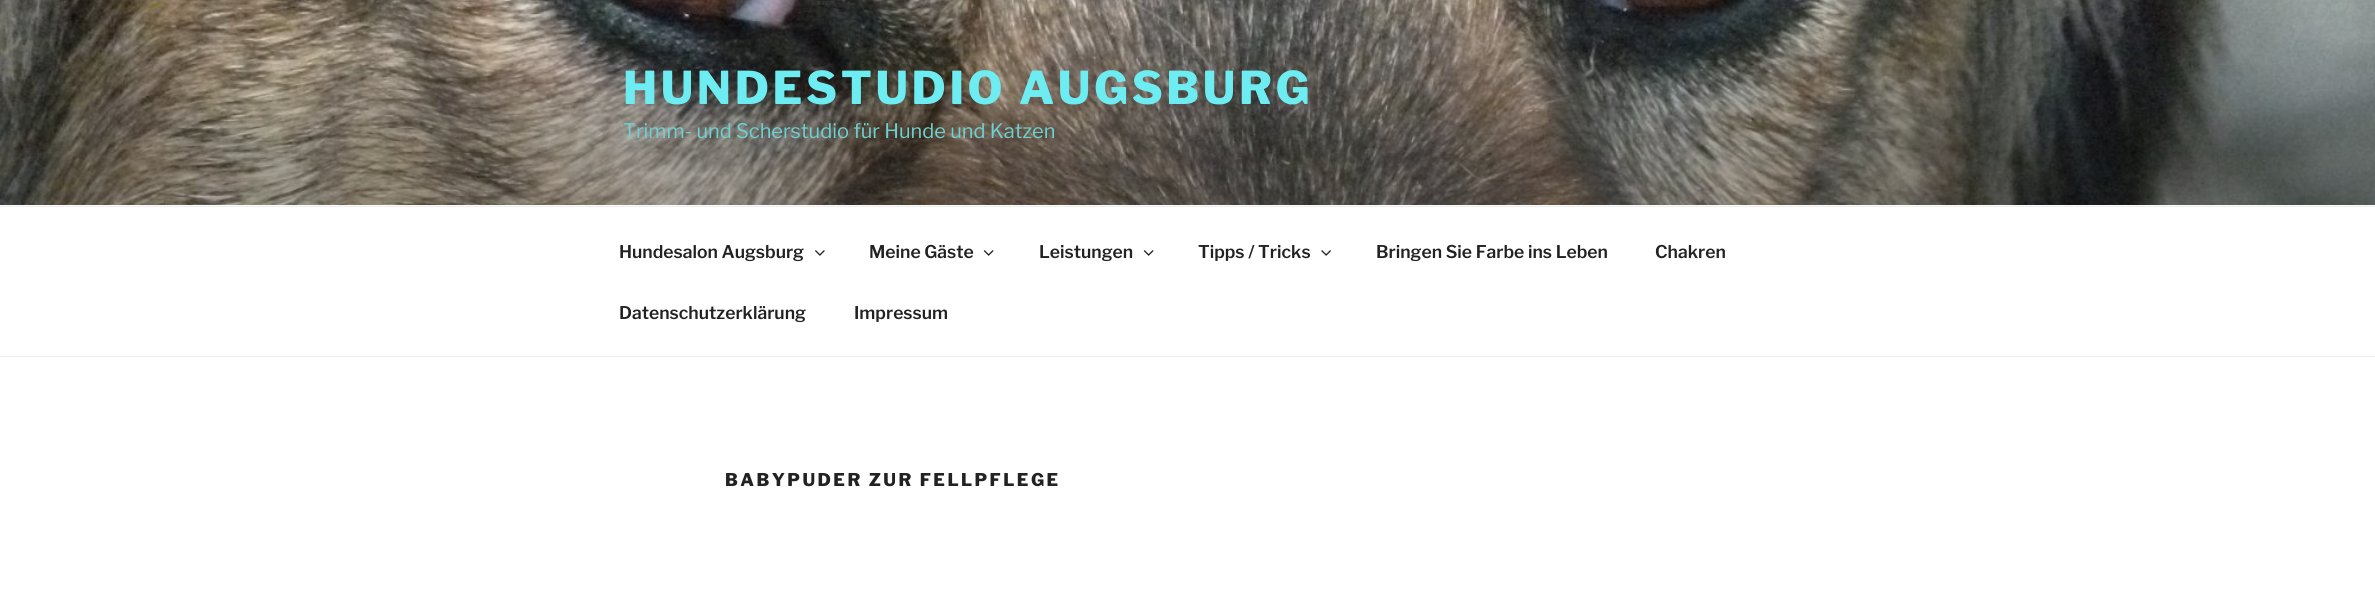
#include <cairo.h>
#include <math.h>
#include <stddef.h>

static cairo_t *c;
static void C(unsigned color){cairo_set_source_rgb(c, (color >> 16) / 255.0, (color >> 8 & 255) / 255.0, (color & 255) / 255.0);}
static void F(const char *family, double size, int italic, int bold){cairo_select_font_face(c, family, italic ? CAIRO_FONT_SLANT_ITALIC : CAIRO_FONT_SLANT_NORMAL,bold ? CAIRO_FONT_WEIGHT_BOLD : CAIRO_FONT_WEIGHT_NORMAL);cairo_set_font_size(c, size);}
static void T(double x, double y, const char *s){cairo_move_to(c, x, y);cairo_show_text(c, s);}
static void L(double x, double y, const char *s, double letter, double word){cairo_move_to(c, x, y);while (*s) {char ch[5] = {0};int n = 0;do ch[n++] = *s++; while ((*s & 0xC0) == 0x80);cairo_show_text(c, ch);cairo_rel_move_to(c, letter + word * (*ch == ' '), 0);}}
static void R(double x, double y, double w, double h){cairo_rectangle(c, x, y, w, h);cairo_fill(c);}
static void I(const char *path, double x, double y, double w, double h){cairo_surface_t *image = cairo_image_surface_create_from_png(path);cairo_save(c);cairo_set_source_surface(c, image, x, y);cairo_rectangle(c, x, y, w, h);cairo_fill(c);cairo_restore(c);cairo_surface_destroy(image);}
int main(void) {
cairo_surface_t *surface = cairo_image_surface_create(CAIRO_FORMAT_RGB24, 2375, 598);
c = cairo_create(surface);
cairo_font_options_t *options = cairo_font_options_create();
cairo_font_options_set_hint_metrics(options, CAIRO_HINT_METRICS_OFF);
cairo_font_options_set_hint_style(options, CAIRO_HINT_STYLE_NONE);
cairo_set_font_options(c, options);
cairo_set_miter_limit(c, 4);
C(0xffffff);
cairo_paint(c);
C(0xfafafa);
R(0,205,2375,1);
I("1.png",0,0,2375,205);
F("Libre Franklin ExtraBold",45,0,0);
C(0x6dedf2);
L(623,104,"HUNDESTUDIO AUGSBURG",3.6,0);
F("Libre Franklin",20,0,0);
C(0x6cd1d3);
T(623,138,"Trimm- und Scherstudio für Hunde und Katzen");
C(0xeeeeee);
R(0,206,2375,1);
R(0,356,2375,1);
F("Libre Franklin SemiBold",17.5,0,0);
C(0x222222);
T(619,258,"Hundesalon Augsburg");
I("2.png",815,250,10,6);
T(869,258,"Meine Gäste");
I("3.png",983,250,11,6);
T(1039,258,"Leistungen");
I("3.png",1143,250,11,6);
T(1198,258,"Tipps / Tricks");
I("4.png",1321,250,10,6);
T(1376,258,"Bringen Sie Farbe ins Leben");
T(1655,258,"Chakren");
T(619,319,"Datenschutzerklärung");
T(854,319,"Impressum");
F("Libre Franklin ExtraBold",17.5,0,0);
L(725,486,"BABYPUDER ZUR FELLPFLEGE",2.45,0);
cairo_surface_write_to_png(surface, "o.png");
cairo_font_options_destroy(options);
cairo_destroy(c);
cairo_surface_destroy(surface);
return 0;
}
